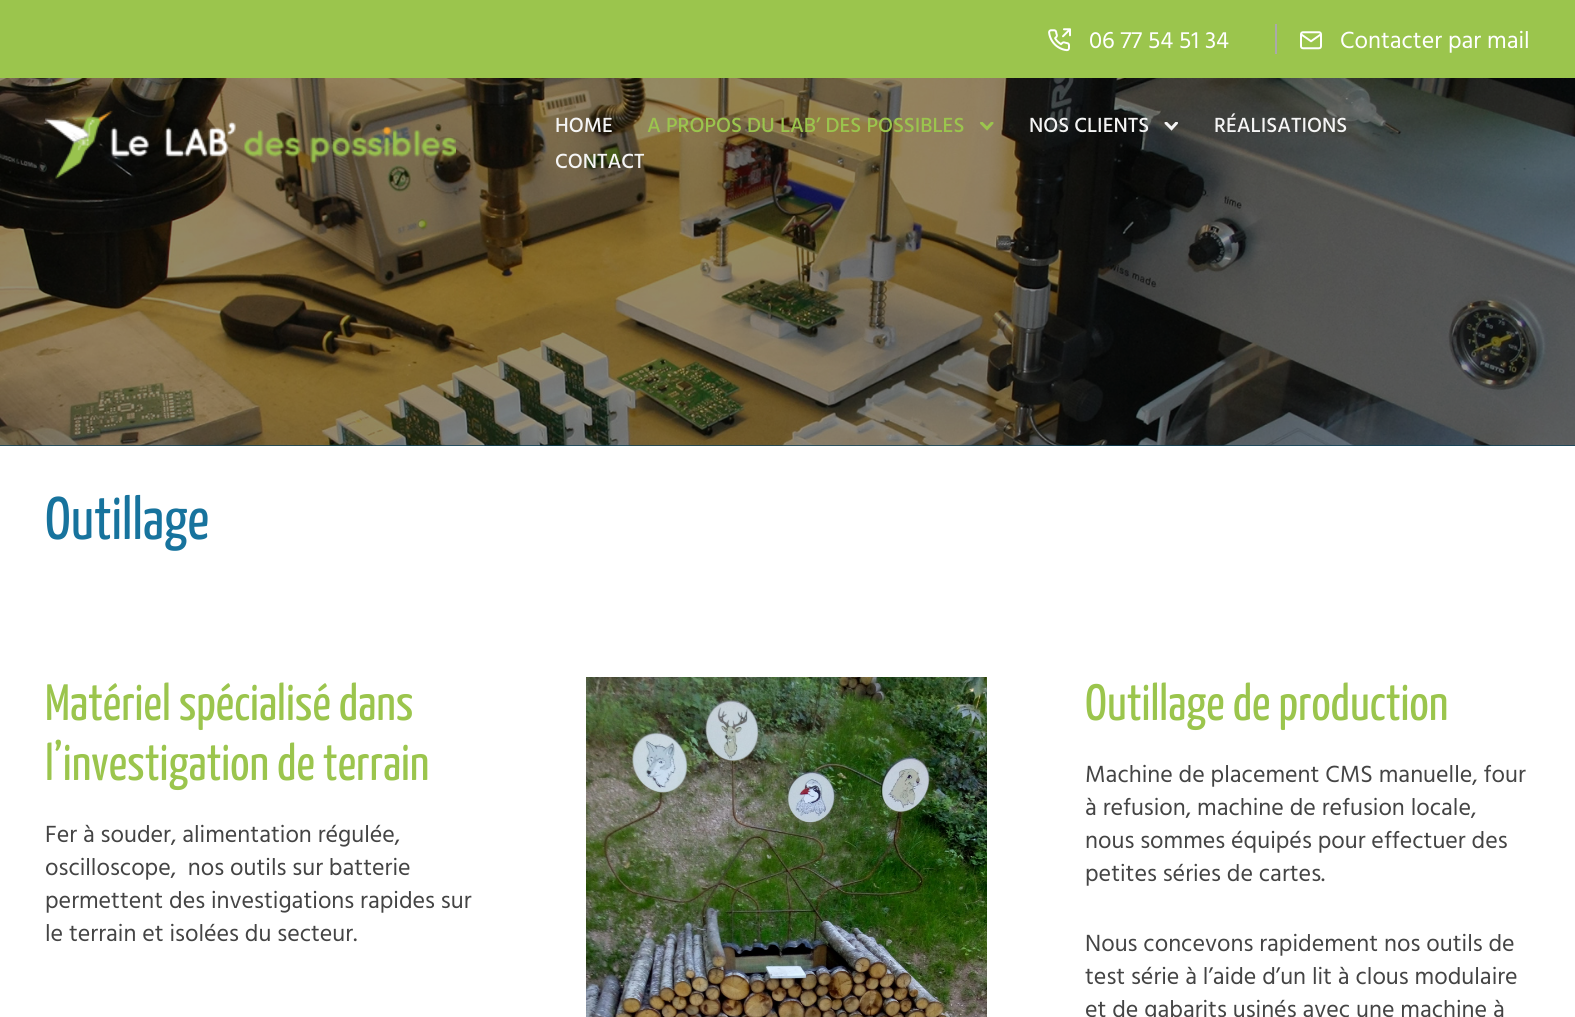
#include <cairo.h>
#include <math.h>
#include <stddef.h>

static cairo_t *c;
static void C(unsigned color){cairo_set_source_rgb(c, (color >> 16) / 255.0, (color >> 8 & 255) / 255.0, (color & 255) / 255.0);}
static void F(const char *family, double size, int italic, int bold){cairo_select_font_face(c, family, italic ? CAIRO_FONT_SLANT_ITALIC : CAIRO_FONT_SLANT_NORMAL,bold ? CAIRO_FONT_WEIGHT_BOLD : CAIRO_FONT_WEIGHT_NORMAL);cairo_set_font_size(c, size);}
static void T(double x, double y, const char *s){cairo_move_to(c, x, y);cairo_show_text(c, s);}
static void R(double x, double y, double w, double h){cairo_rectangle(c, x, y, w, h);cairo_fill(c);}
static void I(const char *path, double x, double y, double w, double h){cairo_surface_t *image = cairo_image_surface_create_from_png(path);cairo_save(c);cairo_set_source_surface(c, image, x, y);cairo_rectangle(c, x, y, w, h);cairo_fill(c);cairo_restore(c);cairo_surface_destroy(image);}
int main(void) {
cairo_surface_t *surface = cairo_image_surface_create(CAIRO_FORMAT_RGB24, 1575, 1017);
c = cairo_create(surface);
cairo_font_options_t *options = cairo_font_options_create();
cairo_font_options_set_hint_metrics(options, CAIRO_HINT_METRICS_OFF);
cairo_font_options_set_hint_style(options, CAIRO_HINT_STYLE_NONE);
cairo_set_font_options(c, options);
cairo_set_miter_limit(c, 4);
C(0xffffff);
cairo_paint(c);
C(0x9bc54d);
R(0,0,1575,78);
I("1.png",1048,28,23,24);
F("Hind",24,0,0);
C(0xffffff);
T(1089,48,"06 77 54 51 34");
C(0xaaaaaa);
R(1275,24,2,30);
I("2.png",1300,31,22,19);
C(0xffffff);
T(1340,48,"Contacter par mail");
C(0x0d435b);
R(0,445,1575,1);
I("4.png",0,78,1575,368);
I("3.png",45,110,411,69);
F("Hind Medium",21,0,0);
C(0xf5f5f5);
T(555,132,"HOME");
C(0x9bc54d);
T(647,132,"A PROPOS DU LAB’ DES POSSIBLES");
cairo_save(c);
cairo_rectangle(c,980,122,15,9);
cairo_clip(c);
cairo_new_path(c);
cairo_move_to(c,992,123);
cairo_line_to(c,987,128.5);
cairo_line_to(c,981.5,123);
cairo_set_line_width(c,3);
cairo_set_line_cap(c,CAIRO_LINE_CAP_ROUND);
cairo_stroke(c);
cairo_restore(c);
C(0xf5f5f5);
T(1029,132,"NOS CLIENTS");
cairo_save(c);
cairo_rectangle(c,1164,122,15,9);
cairo_clip(c);
cairo_new_path(c);
cairo_move_to(c,1176.5,123);
cairo_line_to(c,1171.5,128.5);
cairo_line_to(c,1166,123);
cairo_set_line_width(c,3);
cairo_set_line_cap(c,CAIRO_LINE_CAP_ROUND);
cairo_stroke(c);
cairo_restore(c);
T(1214,132,"RÉALISATIONS");
T(555,168,"CONTACT");
F("Yanone Kaffeesatz ExtraLight",60,0,0);
C(0x17739d);
T(45,539,"Outillage");
F("Yanone Kaffeesatz ExtraLight",51,0,0);
C(0x9bc54d);
T(45,720,"Matériel spécialisé dans");
T(45,780,"l’investigation de terrain");
F("Hind",24,0,0);
C(0x444444);
T(45,842,"Fer à souder, alimentation régulée,");
T(45,875,"oscilloscope,  nos outils sur batterie");
T(45,908,"permettent des investigations rapides sur");
T(45,941,"le terrain et isolées du secteur.");
I("5.png",586,677,401,340);
F("Yanone Kaffeesatz ExtraLight",51,0,0);
C(0x9bc54d);
T(1085,720,"Outillage de production");
F("Hind",24,0,0);
C(0x444444);
T(1085,782,"Machine de placement CMS manuelle, four");
T(1085,815,"à refusion, machine de refusion locale,");
T(1085,848,"nous sommes équipés pour effectuer des");
T(1085,881,"petites séries de cartes.");
T(1085,951,"Nous concevons rapidement nos outils de");
T(1085,984,"test série à l’aide d’un lit à clous modulaire");
T(1085,1017,"et de gabarits usinés avec une machine à");
cairo_surface_write_to_png(surface, "o.png");
cairo_font_options_destroy(options);
cairo_destroy(c);
cairo_surface_destroy(surface);
return 0;
}
